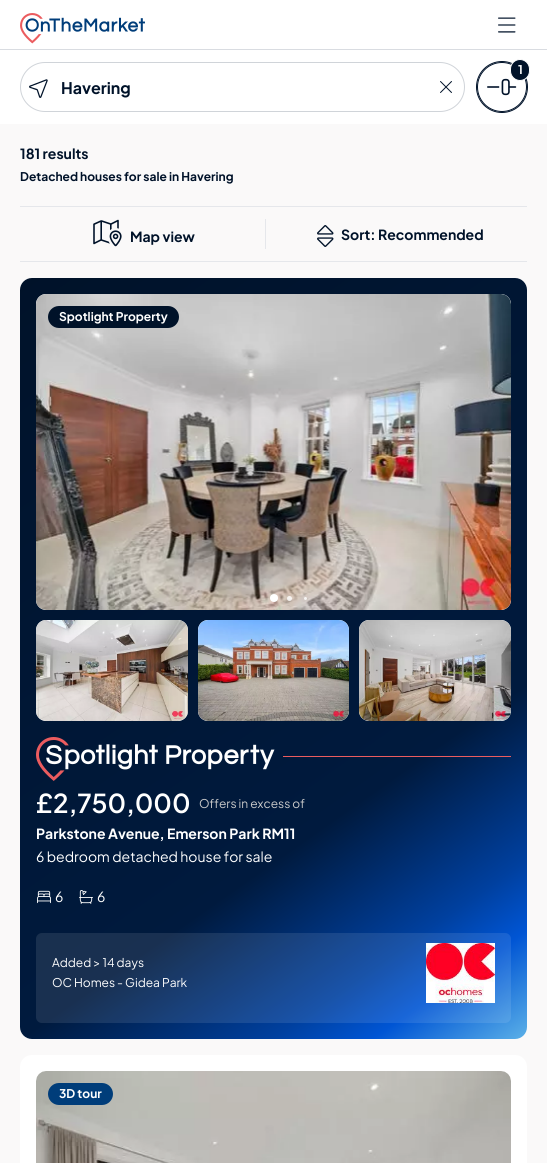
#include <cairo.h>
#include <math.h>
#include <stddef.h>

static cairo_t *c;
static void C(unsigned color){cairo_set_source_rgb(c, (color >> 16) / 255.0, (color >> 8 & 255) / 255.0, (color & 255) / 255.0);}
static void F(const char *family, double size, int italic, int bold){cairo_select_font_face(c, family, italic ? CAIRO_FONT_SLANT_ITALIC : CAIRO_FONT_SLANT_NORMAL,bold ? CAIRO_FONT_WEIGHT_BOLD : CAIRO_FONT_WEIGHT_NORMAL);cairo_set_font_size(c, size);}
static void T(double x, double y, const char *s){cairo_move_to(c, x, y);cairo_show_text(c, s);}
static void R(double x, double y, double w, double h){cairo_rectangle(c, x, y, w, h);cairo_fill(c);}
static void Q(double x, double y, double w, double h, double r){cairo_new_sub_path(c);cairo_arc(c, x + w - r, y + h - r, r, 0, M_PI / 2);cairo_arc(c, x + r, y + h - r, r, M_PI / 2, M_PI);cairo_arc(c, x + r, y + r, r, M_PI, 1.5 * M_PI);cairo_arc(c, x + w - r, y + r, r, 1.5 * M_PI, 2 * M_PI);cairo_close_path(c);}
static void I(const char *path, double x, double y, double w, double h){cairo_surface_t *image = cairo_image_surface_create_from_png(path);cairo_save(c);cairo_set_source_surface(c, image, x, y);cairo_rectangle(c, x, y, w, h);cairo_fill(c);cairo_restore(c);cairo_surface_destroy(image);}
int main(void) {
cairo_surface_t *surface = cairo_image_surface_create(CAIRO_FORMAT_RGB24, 547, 1163);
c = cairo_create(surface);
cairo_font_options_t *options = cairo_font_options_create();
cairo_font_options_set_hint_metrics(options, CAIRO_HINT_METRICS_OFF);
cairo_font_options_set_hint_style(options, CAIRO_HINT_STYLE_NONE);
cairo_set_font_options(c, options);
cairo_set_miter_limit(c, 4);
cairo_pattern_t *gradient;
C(0xffffff);
cairo_paint(c);
C(0xd9dce1);
R(0,49,547,1);
I("1.png",20,13,125,31);
I("2.png",498,17,18,16);
C(0xfaf9f9);
R(0,124,547,1039);
cairo_arc(c,502,87,25.5,0,2 * M_PI);
C(0x001229);
cairo_set_line_width(c,1);
cairo_stroke(c);
cairo_arc(c,502,87,24.5,0,2 * M_PI);
cairo_stroke(c);
I("3.png",487,78,30,18);
Q(510.5,59.5,19,21,9.5);
cairo_fill_preserve(c);
C(0xffffff);
cairo_stroke(c);
F("Plus Jakarta Sans",12,0,1);
T(518,74,"1");
Q(20.5,62.5,444,49,24.5);
C(0xd0d4d9);
cairo_stroke(c);
I("4.png",29,79,19,19);
F("Plus Jakarta Sans",16,0,1);
C(0x001229);
T(61,94,"Havering");
I("5.png",440,81,12,12);
F("Plus Jakarta Sans",14,0,1);
T(20,159,"181 results");
F("Plus Jakarta Sans",12,0,1);
T(20,181,"Detached houses for sale in Havering");
C(0xe5e7eb);
R(20,206,507,1);
R(20,261,507,1);
R(265,219,1,30);
I("6.png",93,219,29,28);
F("Plus Jakarta Sans",14,0,1);
C(0x001229);
T(130,242,"Map view");
I("7.png",317,225,17,22);
T(341,240,"Sort: Recommended");
gradient = cairo_pattern_create_linear(11,284,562,1070);
cairo_pattern_add_color_stop_rgba(gradient,0,0,0.071,0.161,1);
cairo_pattern_add_color_stop_rgba(gradient,.65,0,0.102,0.243,1);
cairo_pattern_add_color_stop_rgba(gradient,.8,0,0.251,0.624,1);
cairo_pattern_add_color_stop_rgba(gradient,.86,0,0.333,0.831,1);
cairo_pattern_add_color_stop_rgba(gradient,1,0.541,0.875,0.949,1);
cairo_set_source(c,gradient);
cairo_pattern_destroy(gradient);
Q(20,278,507,761,12);
cairo_fill(c);
C(0xffffff);
Q(36,294,475,316,10);
cairo_fill(c);
I("8.png",36,294,475,316);
cairo_arc(c,274,598,4,0,2 * M_PI);
cairo_fill(c);
cairo_set_source_rgba(c,1,1,1,0.8);
cairo_arc(c,289.5,598.5,2.5,0,2 * M_PI);
cairo_fill(c);
cairo_arc(c,305.5,598.5,1.5,0,2 * M_PI);
cairo_fill(c);
C(0x001229);
Q(48,306,131,22,11);
cairo_fill(c);
F("Plus Jakarta Sans",12,0,1);
C(0xffffff);
T(59,321,"Spotlight Property");
Q(36,620,152,101,10);
cairo_fill(c);
I("9.png",36,620,152,101);
Q(198,620,151,101,10);
cairo_fill(c);
I("10.png",198,620,151,101);
Q(359,620,152,101,10);
cairo_fill(c);
I("11.png",359,620,152,101);
I("12.png",36,737,239,44);
C(0xeb5c5f);
R(283,756,228,1);
F("Plus Jakarta Sans SemiBold",26,0,0);
C(0xffffff);
T(36,813,"£2,750,000");
F("Plus Jakarta Sans",12,0,0);
C(0xcbcbcb);
T(199,808,"Offers in excess of");
F("Plus Jakarta Sans",14,0,1);
C(0xffffff);
T(36,839,"Parkstone Avenue, Emerson Park RM11");
F("Plus Jakarta Sans",14,0,0);
T(36,862,"6 bedroom detached house for sale");
I("13.png",37,890,14,14);
T(55,902,"6");
I("14.png",79,890,14,14);
T(97,902,"6");
cairo_set_source_rgba(c,1,1,1,0.1);
Q(36,933,475,90,6);
cairo_fill(c);
F("Plus Jakarta Sans",12,0,0);
C(0xffffff);
T(52,967,"Added > 14 days");
T(52,987,"OC Homes - Gidea Park");
I("15.png",426,943,69,60);
Q(20,1055,507,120,12);
cairo_fill(c);
I("16.png",36,1071,475,92);
C(0x003d7a);
Q(48,1083,65,22,11);
cairo_fill(c);
F("Plus Jakarta Sans",12,0,1);
C(0xffffff);
T(59,1098,"3D tour");
cairo_surface_write_to_png(surface, "o.png");
cairo_font_options_destroy(options);
cairo_destroy(c);
cairo_surface_destroy(surface);
return 0;
}
